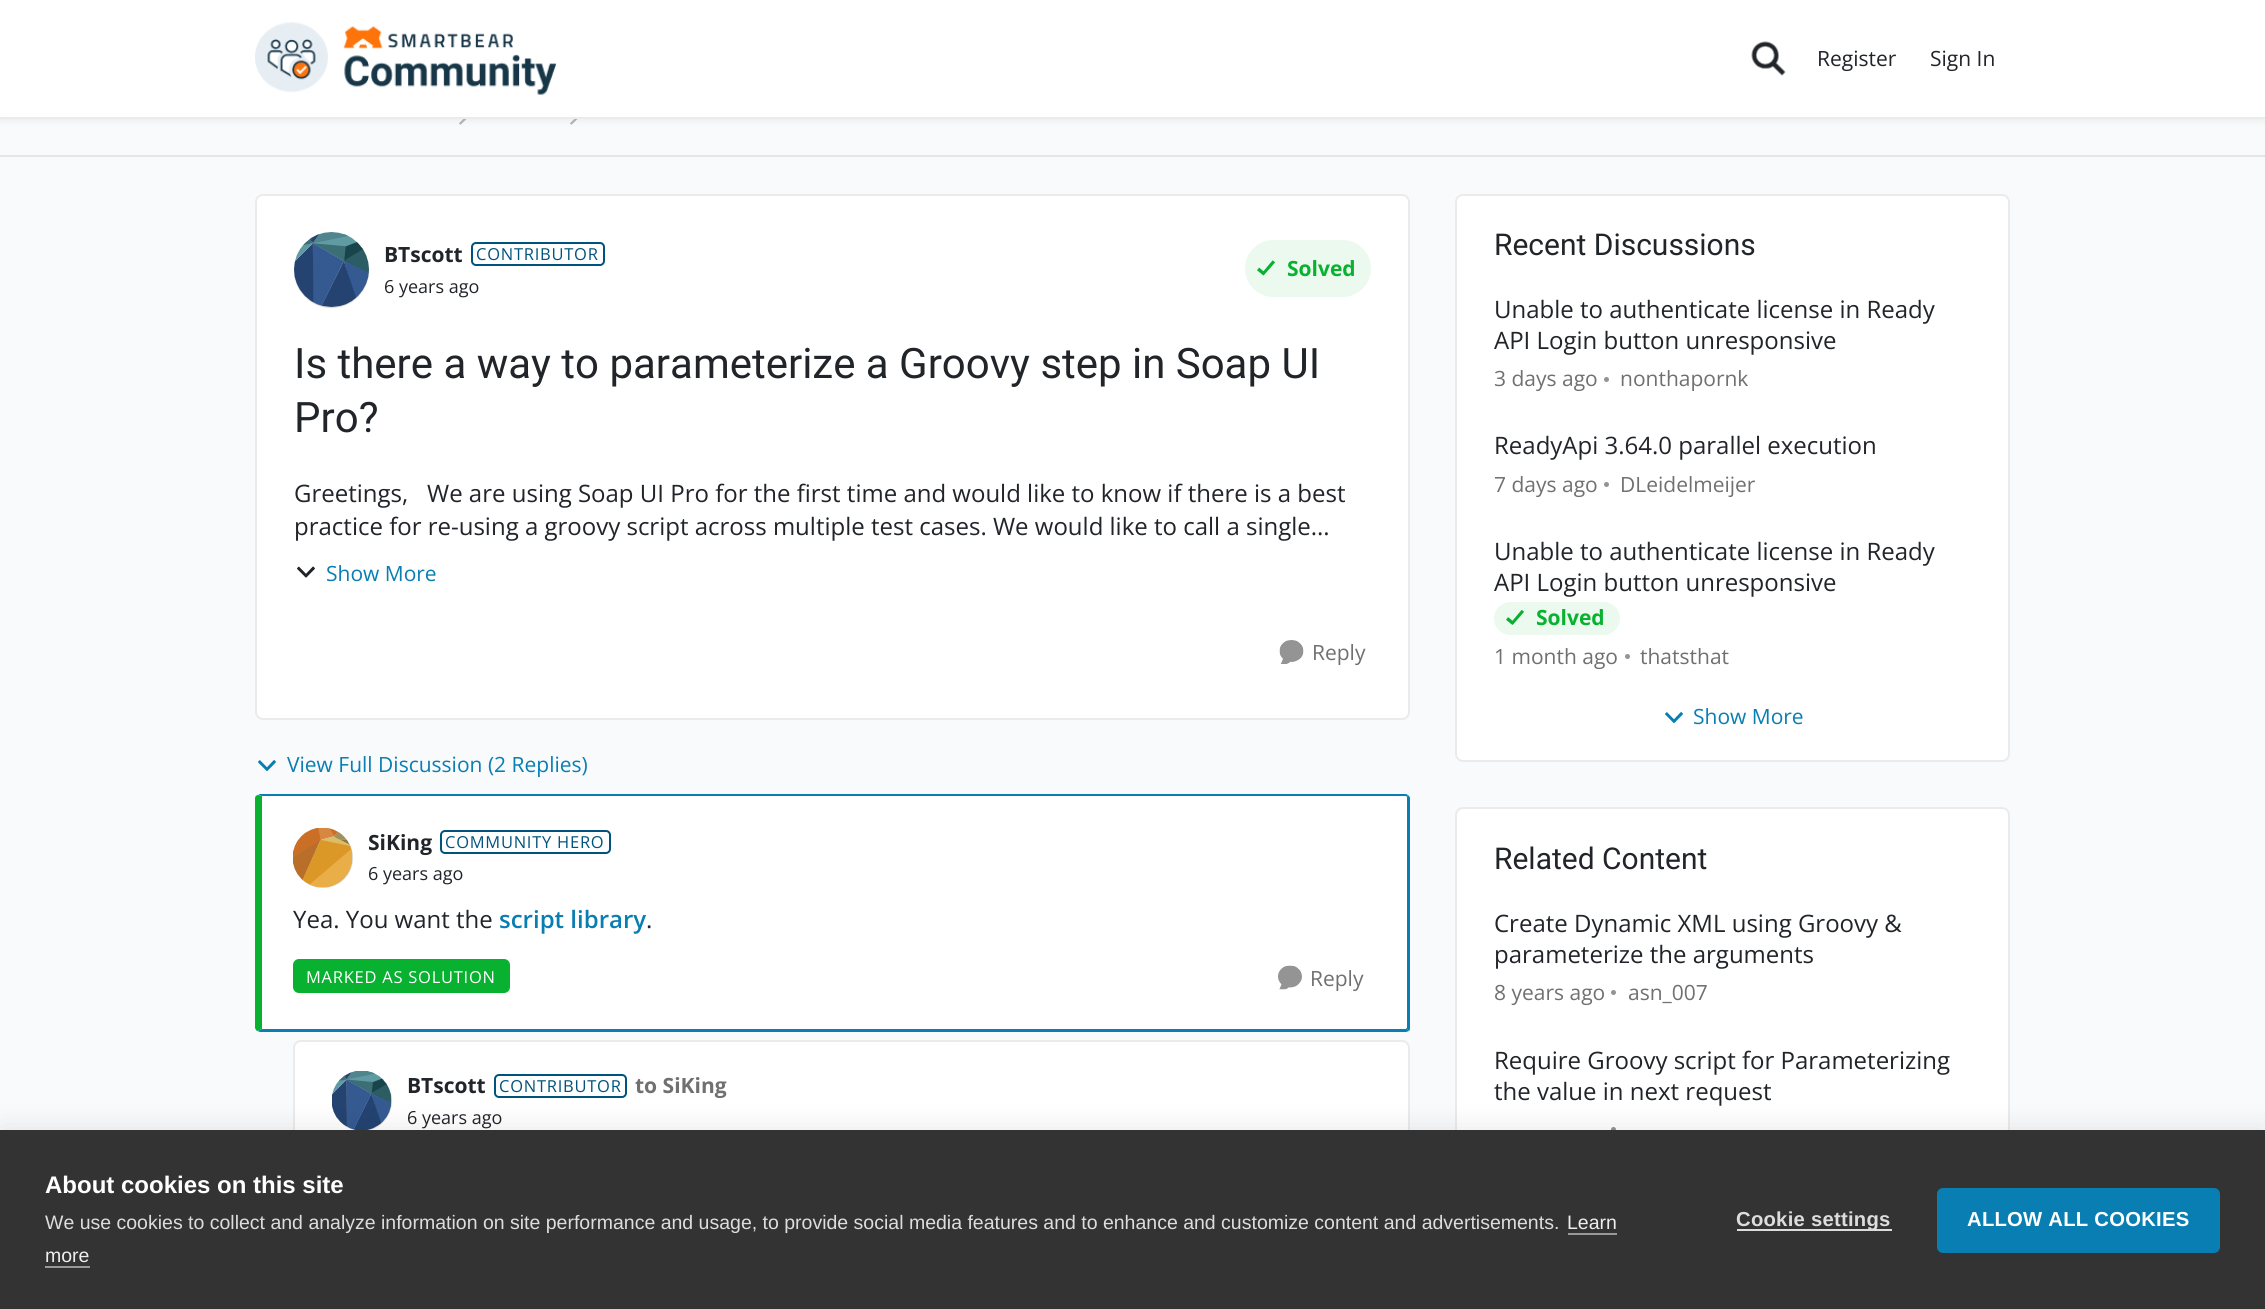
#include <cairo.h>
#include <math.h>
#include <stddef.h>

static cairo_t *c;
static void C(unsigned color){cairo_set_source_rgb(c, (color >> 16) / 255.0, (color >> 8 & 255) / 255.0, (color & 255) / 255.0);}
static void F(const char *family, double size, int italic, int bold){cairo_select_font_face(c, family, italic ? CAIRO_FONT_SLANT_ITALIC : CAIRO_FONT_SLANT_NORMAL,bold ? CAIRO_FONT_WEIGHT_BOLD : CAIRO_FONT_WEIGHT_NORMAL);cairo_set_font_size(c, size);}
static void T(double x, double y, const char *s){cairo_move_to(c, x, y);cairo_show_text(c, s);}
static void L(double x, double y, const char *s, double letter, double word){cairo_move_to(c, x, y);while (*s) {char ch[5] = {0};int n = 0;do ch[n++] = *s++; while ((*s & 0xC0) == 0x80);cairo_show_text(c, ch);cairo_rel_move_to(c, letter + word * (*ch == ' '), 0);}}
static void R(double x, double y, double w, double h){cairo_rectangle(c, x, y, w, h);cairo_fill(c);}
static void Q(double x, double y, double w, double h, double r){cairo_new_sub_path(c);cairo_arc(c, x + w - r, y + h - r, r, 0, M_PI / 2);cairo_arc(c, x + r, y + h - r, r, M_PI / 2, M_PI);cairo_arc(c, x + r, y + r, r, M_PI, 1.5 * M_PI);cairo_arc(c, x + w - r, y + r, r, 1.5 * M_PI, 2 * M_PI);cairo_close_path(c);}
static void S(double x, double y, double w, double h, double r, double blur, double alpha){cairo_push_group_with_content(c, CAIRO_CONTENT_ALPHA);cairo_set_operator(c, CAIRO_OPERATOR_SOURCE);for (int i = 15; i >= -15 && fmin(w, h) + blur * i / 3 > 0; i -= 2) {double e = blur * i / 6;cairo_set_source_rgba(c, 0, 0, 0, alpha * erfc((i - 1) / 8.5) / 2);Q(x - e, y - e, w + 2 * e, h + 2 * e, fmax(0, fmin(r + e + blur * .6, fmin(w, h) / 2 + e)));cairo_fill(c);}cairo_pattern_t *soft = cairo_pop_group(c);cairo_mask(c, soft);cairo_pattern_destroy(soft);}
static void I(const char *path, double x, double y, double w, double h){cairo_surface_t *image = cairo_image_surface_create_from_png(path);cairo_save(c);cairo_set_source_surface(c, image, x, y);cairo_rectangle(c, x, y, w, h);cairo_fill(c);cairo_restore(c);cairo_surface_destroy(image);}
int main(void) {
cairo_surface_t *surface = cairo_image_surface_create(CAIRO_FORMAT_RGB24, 2265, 1309);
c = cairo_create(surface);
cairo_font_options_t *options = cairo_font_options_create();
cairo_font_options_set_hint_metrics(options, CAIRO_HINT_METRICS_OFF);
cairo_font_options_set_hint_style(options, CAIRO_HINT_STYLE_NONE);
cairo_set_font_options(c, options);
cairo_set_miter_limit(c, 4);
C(0xf8fafb);
cairo_paint(c);
I("3.png",459,119,8,6);
I("3.png",570,119,8,6);
C(0x333333);
S(0,3,2265,119,0,3,.06);
C(0xffffff);
R(0,0,2265,117);
C(0xebebeb);
R(0,117,2265,2);
I("1.png",255,22,302,73);
I("2.png",1751,41,35,35);
F("Open Sans",21,0,0);
C(0x212429);
T(1817,66,"Register");
T(1930,66,"Sign In");
C(0xe4e6e7);
R(0,155,2265,2);
C(0xffffff);
Q(255,194,1155,526,8);
cairo_fill(c);
Q(256,195,1153,524,7);
cairo_set_source_rgba(c,0,0,0,0.08);
cairo_stroke(c);
C(0xd9d9d9);
cairo_arc(c,331.5,270.5,37.5,0,2 * M_PI);
cairo_fill(c);
I("4.png",294,232,75,75);
F("Open Sans",21,0,1);
C(0x212429);
T(384,262,"BTscott");
Q(472,243,132,22,4);
C(0x00537c);
cairo_stroke(c);
F("Open Sans",16.5,0,0);
L(476,260,"CONTRIBUTOR",.75,0);
F("Open Sans",18,0,0);
C(0x212429);
T(384,293,"6 years ago");
C(0xebf9ee);
Q(1245,240,126,57,28.5);
cairo_fill(c);
I("5.png",1257,260,18,16);
F("Open Sans",21,0,1);
C(0x08b130);
T(1287,276,"Solved");
F("Roboto",42,0,0);
C(0x212429);
T(294,378,"Is there a way to parameterize a Groovy step in Soap UI");
T(294,432,"Pro?");
F("Open Sans",24,0,0);
T(294,502,"Greetings,");
T(427,502,"We are using Soap UI Pro for the first time and would like to know if there is a best");
T(294,535,"practice for re-using a groovy script across multiple test cases. We would like to call a single...");
I("6.png",297,566,18,12);
F("Open Sans",21,0,0);
C(0x097eb2);
T(326,581,"Show More");
I("7.png",1279,640,25,24);
C(0x707070);
T(1312,660,"Reply");
I("8.png",258,760,18,11);
C(0x097eb2);
T(287,772,"View Full Discussion (2 Replies)");
C(0xffffff);
cairo_new_path(c);
cairo_move_to(c,262,796);
cairo_line_to(c,1406,796);
cairo_curve_to(c,1406,796,1407,797,1407,798);
cairo_line_to(c,1407,1028);
cairo_curve_to(c,1407,1028,1406,1029,1406,1029);
cairo_line_to(c,262,1029);
cairo_close_path(c);
cairo_fill(c);
C(0x097eb2);
cairo_new_path(c);
cairo_move_to(c,260,794);
cairo_line_to(c,258,795);
cairo_line_to(c,262,796);
cairo_line_to(c,1406,796);
cairo_line_to(c,1407,797);
cairo_line_to(c,1408,795);
cairo_line_to(c,1406,794);
cairo_close_path(c);
cairo_fill(c);
cairo_new_path(c);
cairo_move_to(c,1408,795);
cairo_curve_to(c,1409,796,1410,797,1410,798);
cairo_line_to(c,1410,1028);
cairo_curve_to(c,1410,1029,1410,1030,1409,1031);
cairo_line_to(c,1406,1028);
cairo_line_to(c,1407,1028);
cairo_line_to(c,1407,797);
cairo_close_path(c);
cairo_fill(c);
cairo_new_path(c);
cairo_move_to(c,260,1032);
cairo_line_to(c,1406,1032);
cairo_line_to(c,1409,1031);
cairo_line_to(c,1406,1028);
cairo_line_to(c,1406,1029);
cairo_line_to(c,262,1029);
cairo_line_to(c,257,1031);
cairo_close_path(c);
cairo_fill(c);
C(0x08b130);
cairo_new_path(c);
cairo_move_to(c,255,798);
cairo_line_to(c,255,1028);
cairo_line_to(c,256,1030);
cairo_line_to(c,257,1031);
cairo_line_to(c,262,1029);
cairo_line_to(c,262,796);
cairo_line_to(c,258,795);
cairo_curve_to(c,256,795,255,797,255,798);
cairo_close_path(c);
cairo_fill(c);
C(0xd9d9d9);
cairo_arc(c,323,858,30,0,2 * M_PI);
cairo_fill(c);
I("9.png",293,828,60,60);
F("Open Sans",21,0,1);
C(0x212429);
T(368,850,"SiKing");
Q(441,831,169,22,4);
C(0x00537c);
cairo_stroke(c);
F("Open Sans",16.5,0,0);
L(445,848,"COMMUNITY HERO",.75,0);
F("Open Sans",18,0,0);
C(0x212429);
T(368,880,"6 years ago");
F("Open Sans",24,0,0);
T(293,928,"Yea. You want the");
F("Open Sans SemiBold",24,0,0);
C(0x097eb2);
T(499,928,"script library");
F("Open Sans",24,0,0);
C(0x212429);
T(646,928,".");
C(0x08b130);
Q(293,959,217,34,6);
cairo_fill(c);
F("Open Sans",16.5,0,0);
C(0xffffff);
L(306,983,"MARKED AS SOLUTION",.75,0);
I("10.png",1278,965,24,25);
F("Open Sans",21,0,0);
C(0x707070);
T(1310,986,"Reply");
C(0xffffff);
Q(293,1040,1117,235,8);
cairo_fill(c);
Q(294,1041,1115,233,7);
cairo_set_source_rgba(c,0,0,0,0.08);
cairo_stroke(c);
C(0xd9d9d9);
cairo_arc(c,362,1101,30,0,2 * M_PI);
cairo_fill(c);
I("11.png",332,1071,60,59);
F("Open Sans",21,0,1);
C(0x212429);
T(407,1093,"BTscott");
Q(495,1075,131,22,4);
C(0x00537c);
cairo_stroke(c);
cairo_save(c);
cairo_rectangle(c,500,1077,121,18);
cairo_clip(c);
F("Open Sans",16.5,0,0);
L(499,1092,"CONTRIBUTOR",.75,0);
cairo_restore(c);
C(0x707070);
T(635,1093,"to SiKing");
F("Open Sans",18,0,0);
C(0x212429);
T(407,1124,"6 years ago");
C(0xffffff);
Q(1455,194,555,568,8);
cairo_fill(c);
Q(1456,195,553,566,7);
cairo_set_source_rgba(c,0,0,0,0.08);
cairo_stroke(c);
F("Roboto",30,0,0);
C(0x212429);
T(1494,255,"Recent Discussions");
F("Open Sans",24,0,0);
T(1494,318,"Unable to authenticate license in Ready");
T(1494,349,"API Login button unresponsive");
F("Open Sans",21,0,0);
C(0x707070);
T(1494,386,"3 days ago");
C(0x949494);
cairo_new_path(c);
cairo_arc(c,1606.5,379.5,2.5,0,2 * M_PI);
cairo_fill(c);
C(0x707070);
T(1620,386,"nonthapornk");
F("Open Sans",24,0,0);
C(0x212429);
T(1494,454,"ReadyApi 3.64.0 parallel execution");
F("Open Sans",21,0,0);
C(0x707070);
T(1494,492,"7 days ago");
C(0x949494);
cairo_new_path(c);
cairo_arc(c,1606.5,484.5,2.5,0,2 * M_PI);
cairo_fill(c);
C(0x707070);
T(1620,492,"DLeidelmeijer");
F("Open Sans",24,0,0);
C(0x212429);
T(1494,560,"Unable to authenticate license in Ready");
T(1494,591,"API Login button unresponsive");
C(0xebf9ee);
Q(1494,602,126,33,16.5);
cairo_fill(c);
I("12.png",1506,610,18,15);
F("Open Sans",21,0,1);
C(0x08b130);
T(1536,625,"Solved");
F("Open Sans",21,0,0);
C(0x707070);
T(1494,664,"1 month ago");
C(0x949494);
cairo_new_path(c);
cairo_arc(c,1627.5,656.5,2.5,0,2 * M_PI);
cairo_fill(c);
C(0x707070);
T(1640,664,"thatsthat");
I("13.png",1665,712,18,11);
C(0x097eb2);
T(1693,724,"Show More");
C(0xffffff);
Q(1455,807,555,474,8);
cairo_fill(c);
Q(1456,808,553,472,7);
cairo_set_source_rgba(c,0,0,0,0.08);
cairo_stroke(c);
F("Roboto",30,0,0);
C(0x212429);
T(1494,869,"Related Content");
F("Open Sans",24,0,0);
T(1494,932,"Create Dynamic XML using Groovy &");
T(1494,963,"parameterize the arguments");
F("Open Sans",21,0,0);
C(0x707070);
T(1494,1000,"8 years ago");
C(0x949494);
cairo_new_path(c);
cairo_arc(c,1613.5,992.5,2.5,0,2 * M_PI);
cairo_fill(c);
C(0x707070);
T(1628,1000,"asn_007");
F("Open Sans",24,0,0);
C(0x212429);
T(1494,1069,"Require Groovy script for Parameterizing");
T(1494,1100,"the value in next request");
C(0x949494);
cairo_new_path(c);
cairo_arc(c,1613.5,1129.5,2.5,0,2 * M_PI);
cairo_fill(c);
C(0x000000);
S(0,1130,2265,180,0,15,.1);
C(0x333333);
R(0,1130,2265,179);
F("Liberation Sans",24,0,1);
C(0xffffff);
T(45,1193,"About cookies on this site");
F("Liberation Sans",19.5,0,0);
C(0xdddddd);
T(45,1229,"We use cookies to collect and analyze information on site performance and usage, to provide social media features and to enhance and customize content and advertisements.");
C(0xeeeeee);
T(1567,1229,"Learn");
C(0x999999);
R(1568,1233,49,2);
C(0xeeeeee);
T(45,1262,"more");
C(0x999999);
R(45,1266,45,2);
C(0xdddddd);
R(1737,1229,155,2);
F("Liberation Sans",20.25,0,1);
L(1736,1226,"Cookie settings",.25,0);
C(0x097eb2);
Q(1937,1188,283,65,6);
cairo_fill(c);
C(0xffffff);
L(1967,1226,"ALLOW ALL COOKIES",.25,0);
cairo_surface_write_to_png(surface, "o.png");
cairo_font_options_destroy(options);
cairo_destroy(c);
cairo_surface_destroy(surface);
return 0;
}
